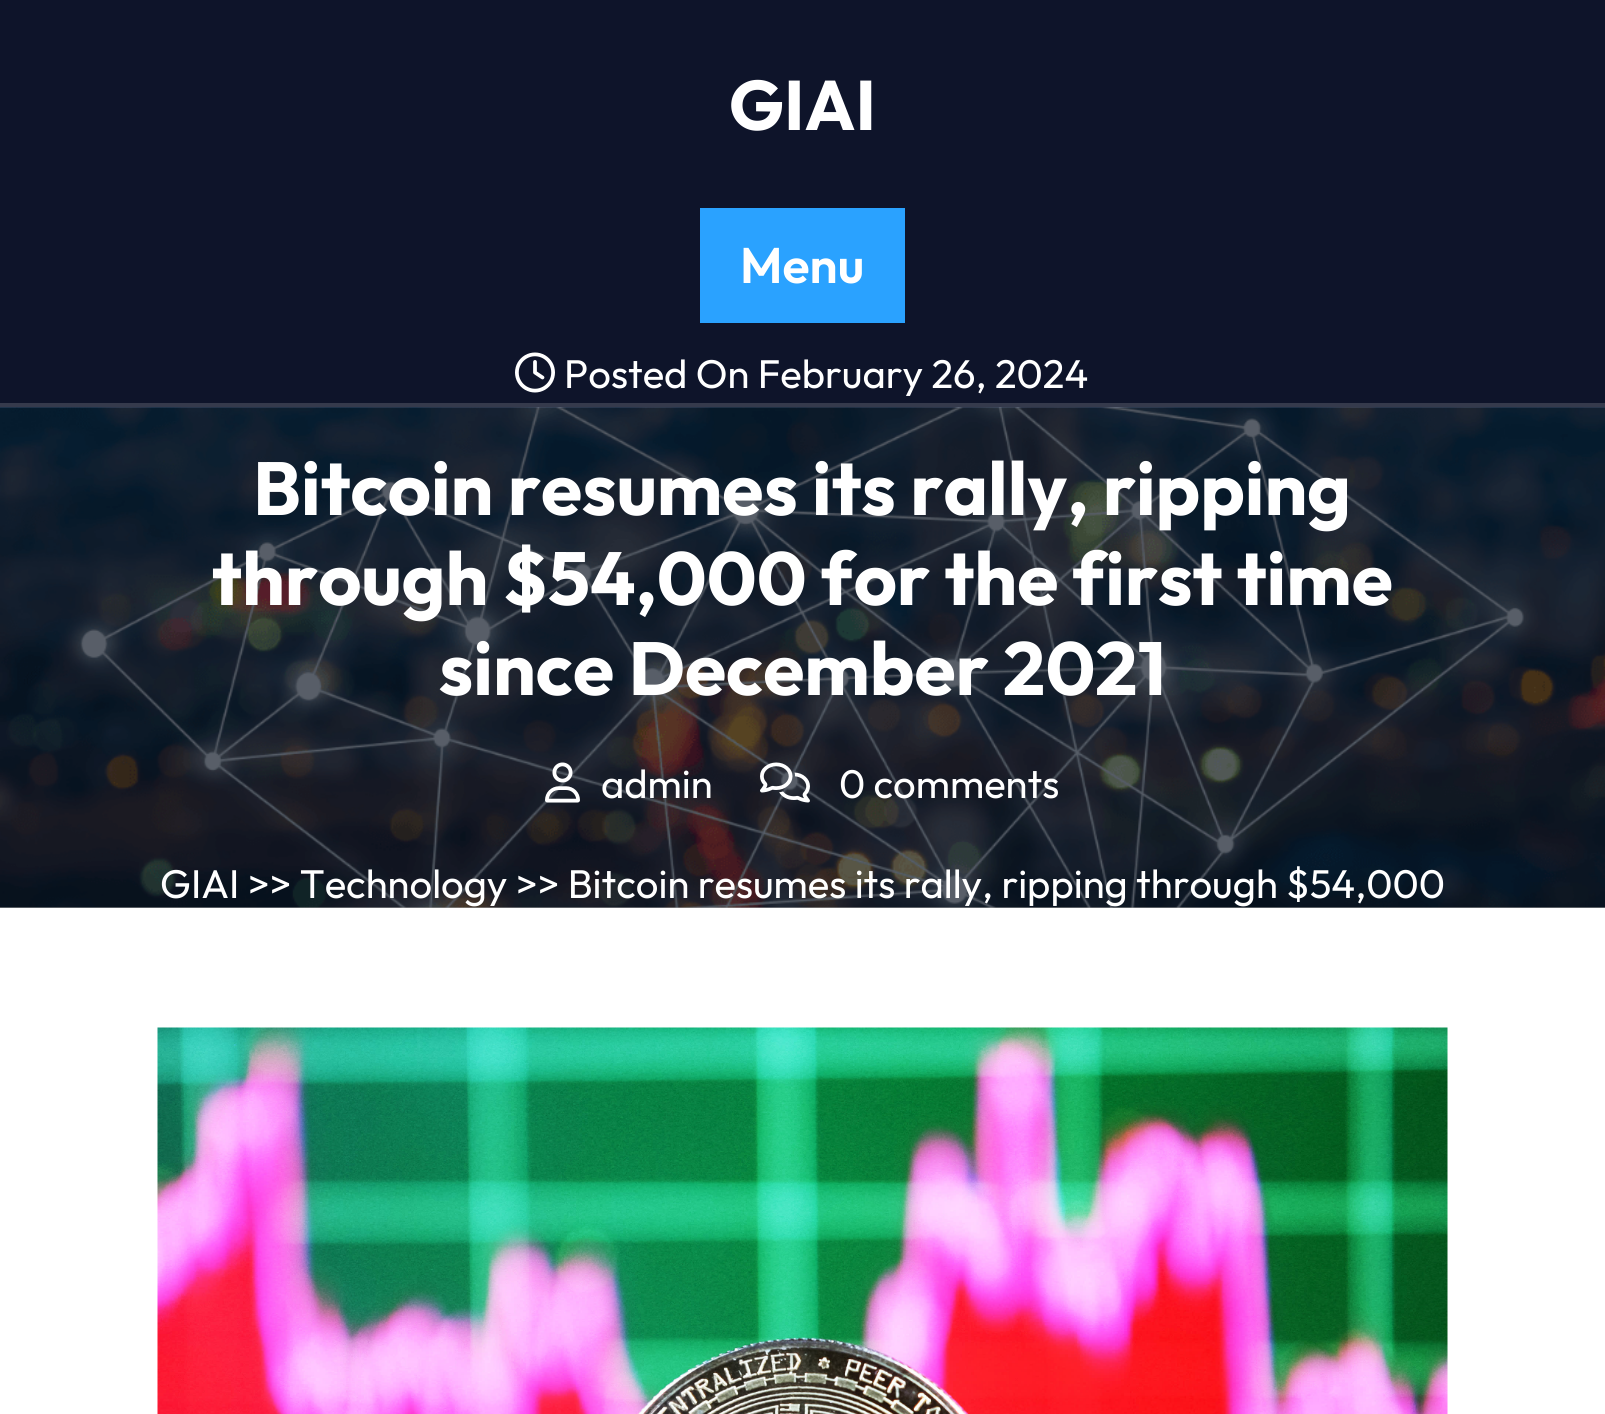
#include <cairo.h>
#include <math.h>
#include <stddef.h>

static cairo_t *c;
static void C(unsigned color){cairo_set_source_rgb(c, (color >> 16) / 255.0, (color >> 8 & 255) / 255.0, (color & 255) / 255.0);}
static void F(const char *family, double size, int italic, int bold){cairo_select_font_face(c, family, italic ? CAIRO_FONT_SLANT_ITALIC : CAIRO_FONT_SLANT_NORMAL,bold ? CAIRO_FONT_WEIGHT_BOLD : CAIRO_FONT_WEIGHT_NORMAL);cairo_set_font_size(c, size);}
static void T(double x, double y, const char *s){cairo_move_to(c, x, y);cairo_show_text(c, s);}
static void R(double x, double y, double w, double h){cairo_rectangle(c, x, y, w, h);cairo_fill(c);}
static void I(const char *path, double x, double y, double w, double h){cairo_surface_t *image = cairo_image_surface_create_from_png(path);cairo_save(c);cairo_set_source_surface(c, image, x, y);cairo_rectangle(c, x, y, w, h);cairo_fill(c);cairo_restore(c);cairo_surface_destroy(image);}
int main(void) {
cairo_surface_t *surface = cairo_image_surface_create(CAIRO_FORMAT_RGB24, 1605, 1414);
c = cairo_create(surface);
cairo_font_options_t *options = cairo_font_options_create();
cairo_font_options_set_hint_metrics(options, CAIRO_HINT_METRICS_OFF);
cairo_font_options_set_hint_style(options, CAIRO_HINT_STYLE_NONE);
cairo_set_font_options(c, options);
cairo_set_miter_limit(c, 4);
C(0xffffff);
cairo_paint(c);
C(0xa6a6a6);
R(0,907,1605,1);
C(0x0e142a);
R(0,0,1605,403);
C(0x353a4c);
R(0,403,1605,5);
F("Outfit",70,0,1);
C(0xffffff);
T(729,130,"GIAI");
C(0x2aa2ff);
R(700,208,205,115);
F("Outfit SemiBold",50,0,0);
C(0xffffff);
T(740,283,"Menu");
I("1.png",0,407,1605,501);
I("2.png",515,352,40,41);
F("Outfit",40,0,0);
T(564,388,"Posted On February 26, 2024");
F("Outfit",75,0,1);
T(253,515,"Bitcoin resumes its rally, ripping");
T(212,605,"through $54,000 for the first time");
T(439,695,"since December 2021");
I("3.png",545,762,35,41);
F("Outfit",40,0,0);
T(601,798,"admin");
I("4.png",760,762,50,41);
T(839,798,"0 comments");
T(160,898,"GIAI");
T(248,898,">> Technology");
T(516,898,">> Bitcoin resumes its rally, ripping through $54,000");
I("5.png",157,1027,1291,387);
cairo_surface_write_to_png(surface, "o.png");
cairo_font_options_destroy(options);
cairo_destroy(c);
cairo_surface_destroy(surface);
return 0;
}
